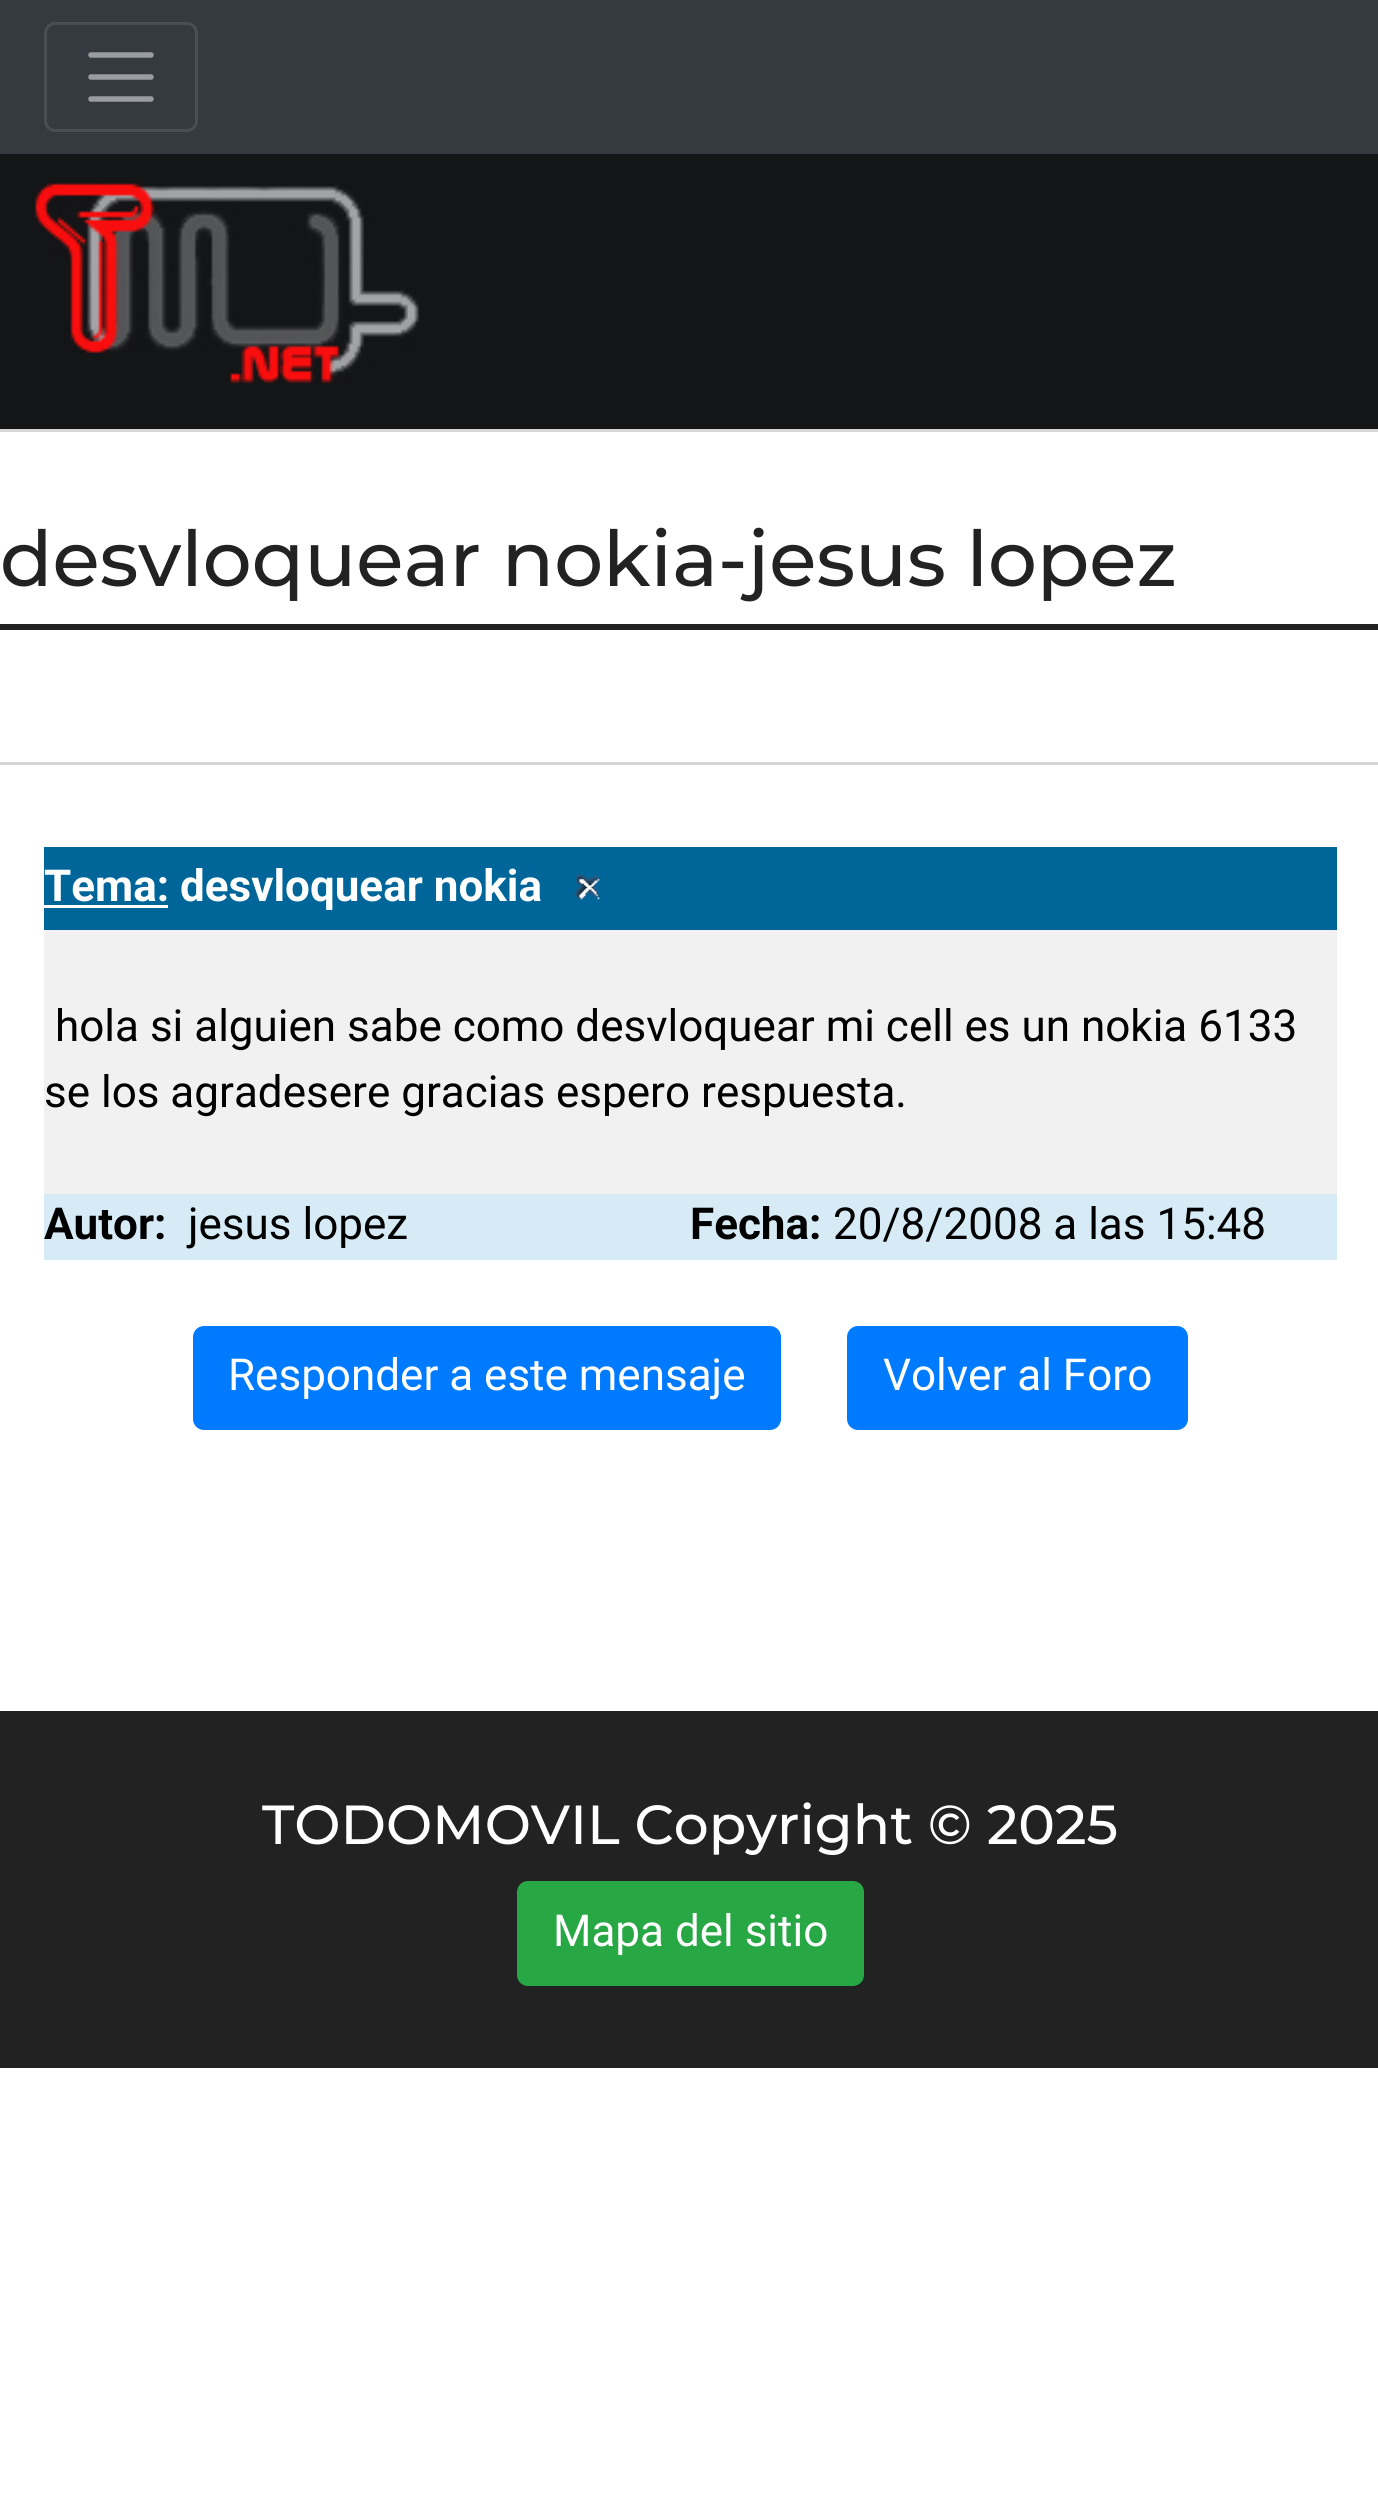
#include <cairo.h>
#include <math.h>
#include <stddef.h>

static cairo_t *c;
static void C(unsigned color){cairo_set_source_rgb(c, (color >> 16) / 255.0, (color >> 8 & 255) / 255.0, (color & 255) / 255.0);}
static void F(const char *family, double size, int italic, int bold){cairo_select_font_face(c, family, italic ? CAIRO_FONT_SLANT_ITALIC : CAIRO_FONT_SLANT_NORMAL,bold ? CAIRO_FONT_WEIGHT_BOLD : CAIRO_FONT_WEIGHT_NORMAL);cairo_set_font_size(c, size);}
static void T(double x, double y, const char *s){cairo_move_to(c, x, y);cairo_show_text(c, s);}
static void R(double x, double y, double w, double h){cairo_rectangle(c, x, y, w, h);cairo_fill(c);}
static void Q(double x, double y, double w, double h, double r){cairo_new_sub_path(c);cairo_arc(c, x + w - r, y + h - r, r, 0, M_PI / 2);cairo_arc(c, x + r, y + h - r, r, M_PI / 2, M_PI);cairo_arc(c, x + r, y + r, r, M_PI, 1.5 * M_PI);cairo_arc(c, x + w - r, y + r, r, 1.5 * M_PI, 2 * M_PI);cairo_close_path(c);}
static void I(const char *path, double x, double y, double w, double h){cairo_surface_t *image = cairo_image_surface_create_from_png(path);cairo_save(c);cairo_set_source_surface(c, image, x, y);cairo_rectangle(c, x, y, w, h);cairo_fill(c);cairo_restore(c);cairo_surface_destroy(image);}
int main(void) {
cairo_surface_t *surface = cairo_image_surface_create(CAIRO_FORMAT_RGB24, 1378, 2515);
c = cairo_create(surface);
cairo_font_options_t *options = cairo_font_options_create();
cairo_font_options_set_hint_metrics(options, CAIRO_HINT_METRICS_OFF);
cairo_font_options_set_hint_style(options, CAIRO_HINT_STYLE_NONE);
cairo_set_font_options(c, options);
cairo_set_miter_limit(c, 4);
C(0xffffff);
cairo_paint(c);
C(0x343a40);
R(0,0,1378,154);
Q(45.5,23.5,151,107,9.5);
C(0x484e53);
cairo_set_line_width(c,3);
cairo_stroke(c);
cairo_new_path(c);
cairo_move_to(c,91,55);
cairo_line_to(c,151,55);
cairo_move_to(c,91,77);
cairo_line_to(c,151,77);
cairo_move_to(c,91,99);
cairo_line_to(c,151,99);
C(0x9a9da0);
cairo_set_line_width(c,5.5);
cairo_set_line_cap(c,CAIRO_LINE_CAP_ROUND);
cairo_stroke(c);
C(0x141517);
R(0,154,1378,275);
I("1.png",35,183,384,201);
C(0xd5d5d5);
R(0,429,1378,3);
R(0,762,1378,3);
C(0x222222);
R(0,624,1378,6);
F("Montserrat Medium",77,0,0);
T(0,586,"desvloquear nokia-jesus lopez");
C(0x006699);
R(44,847,1293,83);
C(0xffffff);
R(44,905,124,3);
F("Roboto",44,0,1);
T(44,901,"Tema: desvloquear nokia");
I("2.png",574,874,26,26);
C(0xf1f1f1);
R(44,930,1293,264);
F("Roboto",44,0,0);
C(0x000000);
T(55,1041,"hola si alguien sabe como desvloquear mi cell es un nokia 6133");
T(44,1107,"se los agradesere gracias espero respuesta.");
C(0xd6ebf5);
R(44,1194,1293,66);
F("Roboto",44,0,1);
C(0x000000);
T(44,1239,"Autor:");
F("Roboto",44,0,0);
T(188,1239,"jesus lopez");
F("Roboto",44,0,1);
T(690,1239,"Fecha:");
F("Roboto",44,0,0);
T(833,1239,"20/8/2008 a las 15:48");
C(0x007bff);
Q(194.5,1327.5,585,101,9.5);
cairo_fill_preserve(c);
cairo_set_line_width(c,3);
cairo_set_line_cap(c,CAIRO_LINE_CAP_BUTT);
cairo_stroke(c);
C(0xffffff);
T(228,1390,"Responder a este mensaje");
C(0x007bff);
Q(848.5,1327.5,338,101,9.5);
cairo_fill_preserve(c);
cairo_stroke(c);
C(0xffffff);
T(883,1390,"Volver al Foro");
C(0x222222);
R(0,1711,1378,357);
F("Montserrat Medium",55,0,0);
C(0xffffff);
T(262,1844,"TODOMOVIL Copyright © 2025");
C(0x28a745);
Q(518.5,1882.5,344,102,9.5);
cairo_fill_preserve(c);
cairo_stroke(c);
F("Roboto",44,0,0);
C(0xffffff);
T(553,1946,"Mapa del sitio");
cairo_surface_write_to_png(surface, "o.png");
cairo_font_options_destroy(options);
cairo_destroy(c);
cairo_surface_destroy(surface);
return 0;
}
